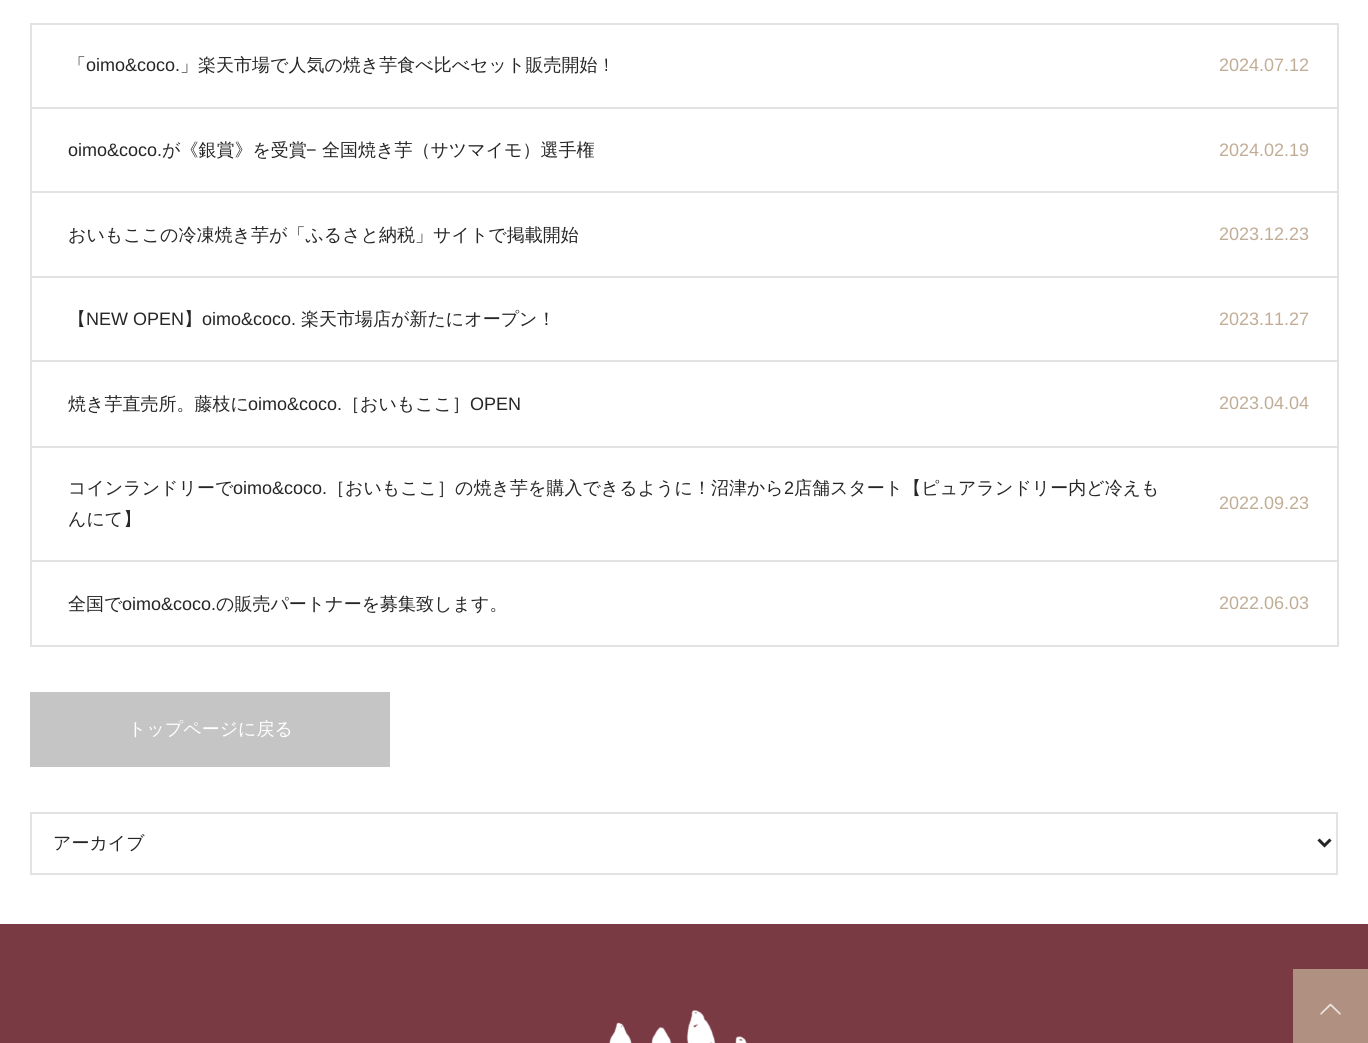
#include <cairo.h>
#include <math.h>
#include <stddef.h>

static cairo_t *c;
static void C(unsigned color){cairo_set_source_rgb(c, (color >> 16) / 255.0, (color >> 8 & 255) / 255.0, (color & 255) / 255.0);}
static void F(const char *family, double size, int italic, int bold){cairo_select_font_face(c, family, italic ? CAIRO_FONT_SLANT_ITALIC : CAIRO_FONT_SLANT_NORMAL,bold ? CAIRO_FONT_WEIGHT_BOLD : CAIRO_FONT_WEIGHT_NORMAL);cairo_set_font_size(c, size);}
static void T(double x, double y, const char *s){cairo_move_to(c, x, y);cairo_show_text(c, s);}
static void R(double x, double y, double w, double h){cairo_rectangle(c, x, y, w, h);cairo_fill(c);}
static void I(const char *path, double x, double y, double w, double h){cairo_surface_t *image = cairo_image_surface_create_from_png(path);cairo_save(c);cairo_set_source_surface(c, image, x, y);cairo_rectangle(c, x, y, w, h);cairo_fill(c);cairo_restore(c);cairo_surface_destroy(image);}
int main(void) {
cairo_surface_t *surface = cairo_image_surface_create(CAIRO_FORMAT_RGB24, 1368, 1043);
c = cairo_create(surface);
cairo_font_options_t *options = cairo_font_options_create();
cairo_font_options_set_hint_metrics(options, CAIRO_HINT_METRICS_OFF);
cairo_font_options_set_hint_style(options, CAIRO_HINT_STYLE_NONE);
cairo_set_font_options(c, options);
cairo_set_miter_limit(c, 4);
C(0xffffff);
cairo_paint(c);
C(0xe2e2e2);
R(30,23,1308,2);
R(1337,23,2,624);
R(30,23,2,624);
R(32,107,1305,2);
F("WenQuanYi Zen Hei Medium",18,0,0);
C(0x262626);
T(68,71,"「");
F("Liberation Sans",18,0,0);
T(86,71,"oimo&coco.");
F("WenQuanYi Zen Hei Medium",18,0,0);
T(180,71,"」楽天市場で人気の焼き芋食べ比べセット販売開始！");
F("Liberation Sans",18,0,0);
C(0xc1ad96);
T(1219,71,"2024.07.12");
C(0xe2e2e2);
R(32,191,1305,2);
C(0x262626);
T(68,156,"oimo&coco.");
F("WenQuanYi Zen Hei Medium",18,0,0);
T(162,156,"が《銀賞》を受賞");
F("Liberation Sans",18,0,0);
T(306,156,"−");
F("WenQuanYi Zen Hei Medium",18,0,0);
T(322,156,"全国焼き芋（サツマイモ）選手権");
F("Liberation Sans",18,0,0);
C(0xc1ad96);
T(1219,156,"2024.02.19");
C(0xe2e2e2);
R(32,276,1305,2);
F("WenQuanYi Zen Hei Medium",18,0,0);
C(0x262626);
T(68,241,"おいもここの冷凍焼き芋が「ふるさと納税」サイトで掲載開始");
F("Liberation Sans",18,0,0);
C(0xc1ad96);
T(1219,240,"2023.12.23");
C(0xe2e2e2);
R(32,360,1305,2);
F("WenQuanYi Zen Hei Medium",18,0,0);
C(0x262626);
T(68,325,"【");
F("Liberation Sans",18,0,0);
T(86,325,"NEW OPEN");
F("WenQuanYi Zen Hei Medium",18,0,0);
T(184,325,"】");
F("Liberation Sans",18,0,0);
T(202,325,"oimo&coco.");
F("WenQuanYi Zen Hei Medium",18,0,0);
T(301,325,"楽天市場店が新たにオープン！");
F("Liberation Sans",18,0,0);
C(0xc1ad96);
T(1219,325,"2023.11.27");
C(0xe2e2e2);
R(32,446,1305,2);
F("WenQuanYi Zen Hei Medium",18,0,0);
C(0x262626);
T(68,410,"焼き芋直売所。藤枝に");
F("Liberation Sans",18,0,0);
T(248,410,"oimo&coco.");
F("WenQuanYi Zen Hei Medium",18,0,0);
T(342,410,"［おいもここ］");
F("Liberation Sans",18,0,0);
T(470,410,"OPEN");
C(0xc1ad96);
T(1219,409,"2023.04.04");
C(0xe2e2e2);
R(32,560,1305,2);
F("WenQuanYi Zen Hei Medium",18,0,0);
C(0x262626);
T(68,494,"コインランドリーで");
F("Liberation Sans",18,0,0);
T(233,494,"oimo&coco.");
F("WenQuanYi Zen Hei Medium",18,0,0);
T(327,494,"［おいもここ］の焼き芋を購入できるように！沼津から");
F("Liberation Sans",18,0,0);
T(784,494,"2");
F("WenQuanYi Zen Hei Medium",18,0,0);
T(794,494,"店舗スタート【ピュアランドリー内ど冷えも");
T(68,525,"んにて】");
F("Liberation Sans",18,0,0);
C(0xc1ad96);
T(1219,509,"2022.09.23");
C(0xe2e2e2);
R(32,645,1305,2);
F("WenQuanYi Zen Hei Medium",18,0,0);
C(0x262626);
T(68,610,"全国で");
F("Liberation Sans",18,0,0);
T(122,610,"oimo&coco.");
F("WenQuanYi Zen Hei Medium",18,0,0);
T(216,610,"の販売パートナーを募集致します。");
F("Liberation Sans",18,0,0);
C(0xc1ad96);
T(1219,609,"2022.06.03");
C(0xc5c5c5);
R(30,692,360,75);
F("WenQuanYi Zen Hei Medium",18,0,0);
C(0xffffff);
T(128,735,"トップページに戻る");
cairo_rectangle(c,31,813,1306,61);
C(0xe2e2e2);
cairo_stroke(c);
cairo_new_path(c);
cairo_move_to(c,1318.5,839.5);
cairo_line_to(c,1324.5,845.5);
cairo_line_to(c,1330.5,839.5);
C(0x262626);
cairo_set_line_width(c,3);
cairo_stroke(c);
T(53,849,"アーカイブ");
C(0x7a3a44);
R(0,924,1368,119);
I("1.png",609,1010,138,33);
C(0xaf9081);
R(1293,969,75,74);
I("2.png",1320,1003,21,12);
cairo_surface_write_to_png(surface, "o.png");
cairo_font_options_destroy(options);
cairo_destroy(c);
cairo_surface_destroy(surface);
return 0;
}
